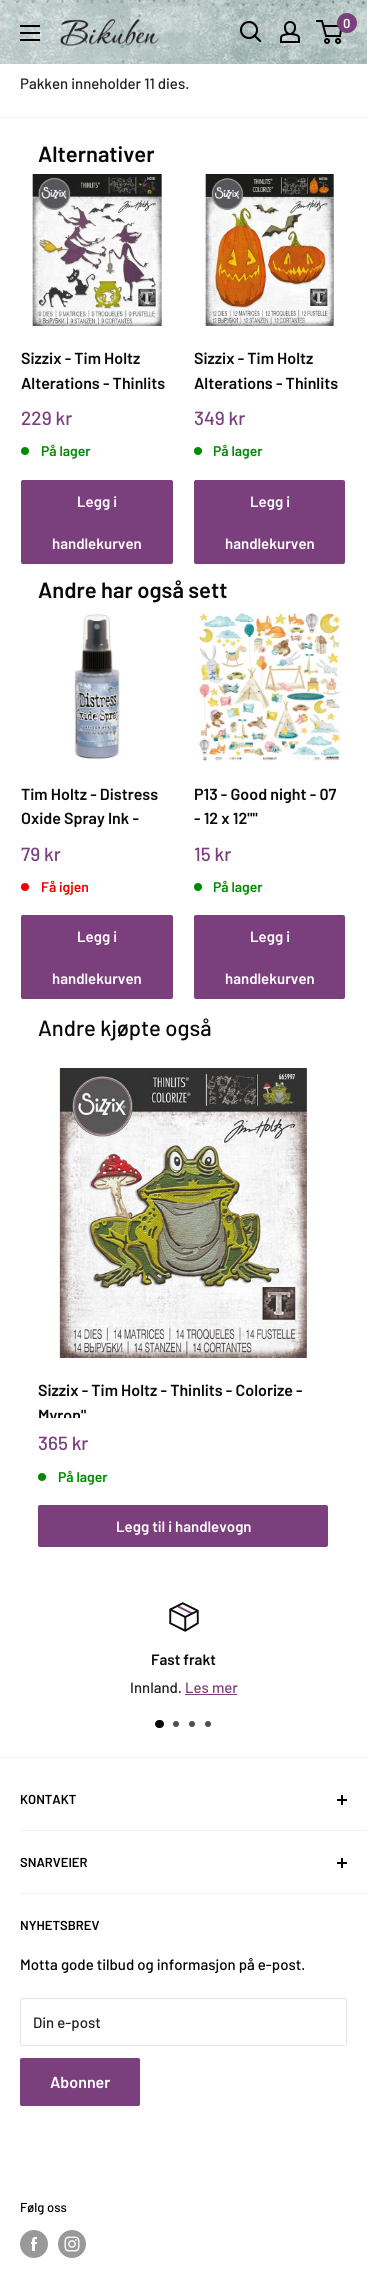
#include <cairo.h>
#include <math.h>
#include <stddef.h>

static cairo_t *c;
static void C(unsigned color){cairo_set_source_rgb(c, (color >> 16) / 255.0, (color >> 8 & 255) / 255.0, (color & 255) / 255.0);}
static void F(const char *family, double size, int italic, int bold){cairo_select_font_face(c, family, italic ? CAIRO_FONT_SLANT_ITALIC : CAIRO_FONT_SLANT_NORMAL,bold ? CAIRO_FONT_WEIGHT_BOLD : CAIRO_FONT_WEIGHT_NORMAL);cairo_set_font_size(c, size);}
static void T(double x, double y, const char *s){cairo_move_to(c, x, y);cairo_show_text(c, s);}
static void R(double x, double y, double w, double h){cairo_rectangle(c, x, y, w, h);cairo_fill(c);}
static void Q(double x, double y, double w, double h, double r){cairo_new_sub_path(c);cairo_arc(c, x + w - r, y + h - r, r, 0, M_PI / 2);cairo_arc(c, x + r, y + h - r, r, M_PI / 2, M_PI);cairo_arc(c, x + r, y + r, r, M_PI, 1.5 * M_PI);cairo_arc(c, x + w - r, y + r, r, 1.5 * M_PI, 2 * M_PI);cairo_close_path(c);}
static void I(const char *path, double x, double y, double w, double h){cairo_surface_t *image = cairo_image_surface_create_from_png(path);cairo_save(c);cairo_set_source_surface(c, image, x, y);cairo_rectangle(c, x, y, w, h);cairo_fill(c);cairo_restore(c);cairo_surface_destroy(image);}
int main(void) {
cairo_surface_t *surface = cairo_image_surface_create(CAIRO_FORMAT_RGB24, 367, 2284);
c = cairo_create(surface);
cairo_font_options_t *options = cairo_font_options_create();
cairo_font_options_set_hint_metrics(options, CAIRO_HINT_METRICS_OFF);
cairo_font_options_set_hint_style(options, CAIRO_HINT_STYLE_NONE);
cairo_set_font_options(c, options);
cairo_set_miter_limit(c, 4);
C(0xffffff);
cairo_paint(c);
I("1.png",0,0,367,64);
I("2.png",60,18,100,28);
cairo_new_path(c);
cairo_move_to(c,260,41);
cairo_line_to(c,254.5,35.5);
C(0x000000);
cairo_set_line_width(c,2.1);
cairo_set_line_cap(c,CAIRO_LINE_CAP_SQUARE);
cairo_stroke(c);
cairo_arc(c,249,30,8,0,2 * M_PI);
cairo_set_line_cap(c,CAIRO_LINE_CAP_BUTT);
cairo_stroke(c);
I("3.png",280,21,20,22);
cairo_arc(c,327,41,2,0,2 * M_PI);
cairo_set_line_width(c,2);
cairo_stroke(c);
cairo_arc(c,338,41,2,0,2 * M_PI);
cairo_stroke(c);
cairo_new_path(c);
cairo_move_to(c,323.5,26);
cairo_line_to(c,341.5,26);
cairo_line_to(c,340,36);
cairo_line_to(c,326,36);
cairo_line_to(c,322,21);
cairo_line_to(c,316,21);
cairo_stroke(c);
C(0x7b3f7d);
cairo_arc(c,347,23,10,0,2 * M_PI);
cairo_fill(c);
F("Barlow SemiBold",13,0,0);
C(0xffffff);
T(343,28,"0");
I("4.png",20,25,20,16);
C(0xf2f2f2);
R(0,117,367,1);
F("Barlow Medium",15,0,0);
C(0x202020);
T(20,89,"Pakken inneholder 11 dies.");
F("Barlow SemiBold",22,0,0);
C(0x0a0909);
T(38,162,"Alternativer");
I("5.png",32,174,130,152);
F("Barlow SemiBold",16,0,0);
T(21,364,"Sizzix - Tim Holtz");
T(21,389,"Alterations - Thinlits");
F("Barlow Medium",19,0,0);
C(0x7b3f7d);
T(21,425,"229 kr");
C(0x008a00);
cairo_new_path(c);
cairo_arc(c,25,451,4,0,2 * M_PI);
cairo_fill(c);
F("Barlow SemiBold",14,0,0);
T(41,456,"På lager");
C(0x7b3f7d);
Q(21,480,152,84,2);
cairo_fill(c);
F("Barlow SemiBold",15,0,0);
C(0xffffff);
T(77,507,"Legg i");
T(52,549,"handlekurven");
I("6.png",205,174,129,152);
F("Barlow SemiBold",16,0,0);
C(0x0a0909);
T(194,364,"Sizzix - Tim Holtz");
T(194,389,"Alterations - Thinlits");
F("Barlow Medium",19,0,0);
C(0x7b3f7d);
T(194,425,"349 kr");
C(0x008a00);
cairo_new_path(c);
cairo_arc(c,198,451,4,0,2 * M_PI);
cairo_fill(c);
F("Barlow SemiBold",14,0,0);
T(213,456,"På lager");
C(0x7b3f7d);
Q(194,480,151,84,2);
cairo_fill(c);
F("Barlow SemiBold",15,0,0);
C(0xffffff);
T(250,507,"Legg i");
T(225,549,"handlekurven");
F("Barlow SemiBold",22,0,0);
C(0x0a0909);
T(38,598,"Andre har også sett");
I("7.png",74,614,46,146);
F("Barlow SemiBold",16,0,0);
T(21,800,"Tim Holtz - Distress");
T(21,824,"Oxide Spray Ink -");
F("Barlow Medium",19,0,0);
C(0x7b3f7d);
T(21,861,"79 kr");
C(0xee0000);
cairo_new_path(c);
cairo_arc(c,25,887,4,0,2 * M_PI);
cairo_fill(c);
F("Barlow SemiBold",14,0,0);
T(41,892,"Få igjen");
C(0x7b3f7d);
Q(21,915,152,84,2);
cairo_fill(c);
F("Barlow SemiBold",15,0,0);
C(0xffffff);
T(77,942,"Legg i");
T(52,984,"handlekurven");
I("8.png",197,613,145,149);
F("Barlow SemiBold",16,0,0);
C(0x0a0909);
T(194,800,"P13 - Good night - 07");
T(194,824,"- 12 x 12\"\"");
F("Barlow Medium",19,0,0);
C(0x7b3f7d);
T(194,861,"15 kr");
C(0x008a00);
cairo_new_path(c);
cairo_arc(c,198,887,4,0,2 * M_PI);
cairo_fill(c);
F("Barlow SemiBold",14,0,0);
T(213,892,"På lager");
C(0x7b3f7d);
Q(194,915,151,84,2);
cairo_fill(c);
F("Barlow SemiBold",15,0,0);
C(0xffffff);
T(250,942,"Legg i");
T(225,984,"handlekurven");
F("Barlow Medium",22,0,0);
C(0x0a0909);
T(38,1036,"Andre kjøpte også");
I("9.png",59,1068,248,290);
F("Barlow SemiBold",16,0,0);
T(38,1396,"Sizzix - Tim Holtz - Thinlits - Colorize -");
cairo_save(c);
cairo_rectangle(c,38,1378,290,40);
cairo_clip(c);
T(38,1421,"Myron\"");
cairo_restore(c);
F("Barlow Medium",19,0,0);
C(0x7b3f7d);
T(38,1450,"365 kr");
C(0x008a00);
cairo_new_path(c);
cairo_arc(c,42,1477,4,0,2 * M_PI);
cairo_fill(c);
F("Barlow SemiBold",14,0,0);
T(58,1482,"På lager");
C(0x7b3f7d);
Q(38,1505,290,42,2);
cairo_fill(c);
F("Barlow SemiBold",15,0,0);
C(0xffffff);
T(116,1532,"Legg til i handlevogn");
I("10.png",169,1602,30,30);
C(0x0a0909);
T(151,1665,"Fast frakt");
F("Barlow Medium",15,0,0);
C(0x202020);
T(130,1693,"Innland.");
C(0x7b3f7d);
T(185,1693,"Les mer");
R(185,1694,52,1);
C(0x0a0909);
Q(155,1720,9,8,4);
cairo_fill(c);
C(0x4d4d4d);
cairo_arc(c,176,1724,3,0,2 * M_PI);
cairo_fill(c);
cairo_arc(c,192,1724,3,0,2 * M_PI);
cairo_fill(c);
cairo_arc(c,208,1724,3,0,2 * M_PI);
cairo_fill(c);
C(0xf2f2f2);
R(0,1757,367,1);
R(20,1830,347,1);
F("Barlow SemiBold",13,0,0);
C(0x000000);
T(20,1804,"KONTAKT");
R(341,1795,2,10);
R(337,1799,10,2);
C(0xf2f2f2);
R(20,1893,347,1);
C(0x000000);
T(20,1867,"SNARVEIER");
R(341,1858,2,10);
R(337,1862,10,2);
T(20,1930,"NYHETSBREV");
F("Barlow Medium",15,0,0);
T(20,1970,"Motta gode tilbud og informasjon på e-post.");
C(0xfcfcfc);
cairo_new_path(c);
cairo_move_to(c,22,2000);
cairo_line_to(c,345,2000);
cairo_curve_to(c,346,2000,346,2000,346,2001);
cairo_curve_to(c,346,2000,346,1999,345,1999);
cairo_line_to(c,22,1999);
cairo_line_to(c,21,1999);
cairo_line_to(c,21,2001);
cairo_curve_to(c,21,2000,21,2000,22,2000);
cairo_close_path(c);
cairo_fill(c);
Q(20.5,1998.5,326,47,1.5);
C(0xe5e5e5);
cairo_set_line_width(c,1);
cairo_stroke(c);
C(0x202020);
T(33,2028,"Din e-post");
C(0x7b3f7d);
Q(20,2058,120,48,2);
cairo_fill(c);
F("Barlow SemiBold",16,0,0);
C(0xffffff);
T(50,2088,"Abonner");
F("Barlow Medium",13,0,0);
C(0x000000);
T(20,2212,"Følg oss");
I("11.png",20,2230,28,28);
I("12.png",58,2230,28,28);
cairo_surface_write_to_png(surface, "o.png");
cairo_font_options_destroy(options);
cairo_destroy(c);
cairo_surface_destroy(surface);
return 0;
}
